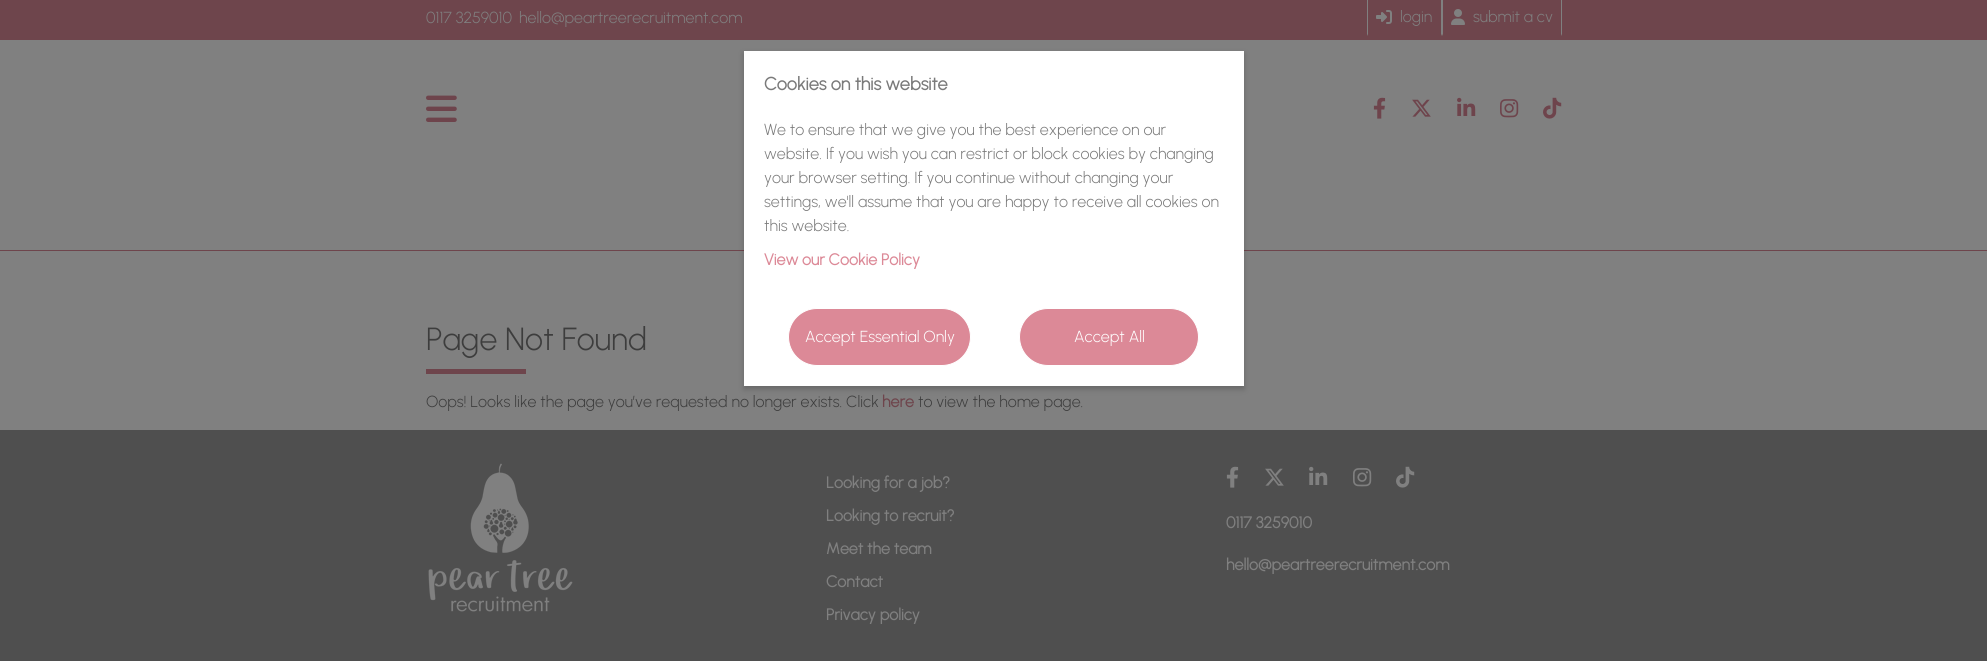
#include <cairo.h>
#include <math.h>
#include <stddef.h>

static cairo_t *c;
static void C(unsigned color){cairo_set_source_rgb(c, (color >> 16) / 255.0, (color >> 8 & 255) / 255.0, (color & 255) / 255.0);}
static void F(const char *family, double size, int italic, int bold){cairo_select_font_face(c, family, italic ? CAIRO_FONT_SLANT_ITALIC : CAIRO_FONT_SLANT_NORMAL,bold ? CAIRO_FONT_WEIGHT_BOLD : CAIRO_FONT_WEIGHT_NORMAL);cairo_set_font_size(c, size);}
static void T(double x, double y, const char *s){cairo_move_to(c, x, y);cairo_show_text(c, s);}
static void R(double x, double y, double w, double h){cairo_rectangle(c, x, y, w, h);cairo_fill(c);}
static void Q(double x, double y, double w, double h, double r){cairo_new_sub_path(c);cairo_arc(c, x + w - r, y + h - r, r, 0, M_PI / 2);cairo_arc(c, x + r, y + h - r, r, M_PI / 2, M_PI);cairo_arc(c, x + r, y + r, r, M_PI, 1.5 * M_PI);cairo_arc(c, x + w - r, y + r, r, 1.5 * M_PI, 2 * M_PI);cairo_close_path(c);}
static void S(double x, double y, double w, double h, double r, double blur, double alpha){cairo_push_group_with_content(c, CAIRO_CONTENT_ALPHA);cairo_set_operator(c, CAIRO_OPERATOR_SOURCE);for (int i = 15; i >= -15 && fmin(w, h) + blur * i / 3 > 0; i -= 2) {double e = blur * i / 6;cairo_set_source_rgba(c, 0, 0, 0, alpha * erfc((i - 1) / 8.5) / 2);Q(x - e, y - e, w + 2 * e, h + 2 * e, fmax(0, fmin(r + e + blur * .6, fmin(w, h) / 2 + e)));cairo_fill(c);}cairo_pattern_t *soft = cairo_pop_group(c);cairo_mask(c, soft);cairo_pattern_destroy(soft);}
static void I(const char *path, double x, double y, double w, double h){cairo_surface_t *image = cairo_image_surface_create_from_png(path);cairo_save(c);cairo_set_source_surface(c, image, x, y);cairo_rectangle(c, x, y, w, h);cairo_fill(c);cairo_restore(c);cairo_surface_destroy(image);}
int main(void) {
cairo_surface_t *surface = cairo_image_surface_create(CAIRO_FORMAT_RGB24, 1987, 661);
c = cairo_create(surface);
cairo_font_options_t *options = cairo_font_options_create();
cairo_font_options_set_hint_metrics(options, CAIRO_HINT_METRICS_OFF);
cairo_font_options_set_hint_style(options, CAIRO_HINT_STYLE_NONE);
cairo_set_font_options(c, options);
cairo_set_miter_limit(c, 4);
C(0x808080);
cairo_paint(c);
C(0x6e454c);
R(0,0,1987,40);
F("Urbanist Light",16,0,0);
C(0x808080);
T(426,23,"0117 3259010");
T(519,23,"hello@peartreerecruitment.com");
cairo_new_path(c);
cairo_move_to(c,1442,0);
cairo_line_to(c,1442,36);
cairo_line_to(c,1441,34);
cairo_line_to(c,1441,0);
cairo_close_path(c);
cairo_fill(c);
cairo_new_path(c);
cairo_move_to(c,1367,36);
cairo_line_to(c,1367,0);
cairo_line_to(c,1368,0);
cairo_line_to(c,1368,34);
cairo_close_path(c);
cairo_fill(c);
I("1.png",1376,10,16,14);
T(1400,22,"login");
cairo_new_path(c);
cairo_move_to(c,1562,0);
cairo_line_to(c,1562,36);
cairo_line_to(c,1561,34);
cairo_line_to(c,1561,0);
cairo_close_path(c);
cairo_fill(c);
cairo_new_path(c);
cairo_move_to(c,1442,36);
cairo_line_to(c,1442,0);
cairo_line_to(c,1443,0);
cairo_line_to(c,1443,34);
cairo_close_path(c);
cairo_fill(c);
I("2.png",1451,9,14,16);
T(1473,22,"submit a cv");
I("3.png",426,95,31,27);
I("4.png",1373,97,13,22);
I("5.png",1412,99,19,18);
I("6.png",1457,97,19,19);
I("7.png",1500,99,19,19);
I("8.png",1543,97,19,22);
C(0x6e454c);
R(0,250,1987,1);
C(0x000000);
S(744,54,500,335,0,3,.2);
C(0xffffff);
R(744,51,500,335);
F("Urbanist",18,0,1);
C(0x7a7a7a);
T(764,90,"Cookies on this website");
F("Urbanist Light",16,0,0);
T(764,135,"We to ensure that we give you the best experience on our");
T(764,159,"website. If you wish you can restrict or block cookies by changing");
T(764,183,"your browser setting. If you continue without changing your");
T(764,207,"settings, we'll assume that you are happy to receive all cookies on");
T(764,231,"this website.");
F("Urbanist",16,0,1);
C(0xdc8997);
T(764,265,"View our Cookie Policy");
Q(788.5,308.5,182,57,28.5);
cairo_fill_preserve(c);
C(0xffffff);
cairo_set_line_width(c,1);
cairo_stroke(c);
F("Urbanist Light",16,0,0);
T(805,342,"Accept Essential Only");
C(0xdc8997);
Q(1019.5,308.5,179,57,28.5);
cairo_fill_preserve(c);
C(0xffffff);
cairo_stroke(c);
T(1074,342,"Accept All");
F("Urbanist Light",32,0,0);
C(0x3d3d3d);
T(426,350,"Page Not Found");
C(0x6e454c);
R(426,369,100,5);
F("Urbanist Light",16,0,0);
C(0x3d3d3d);
T(426,407,"Oops! Looks like the page you’ve requested no longer exists. Click");
F("Urbanist",16,0,1);
C(0x6e454c);
T(882,407,"here");
F("Urbanist Light",16,0,0);
C(0x3d3d3d);
T(918,407,"to view the home page.");
C(0x4f4f4f);
R(0,430,1987,231);
I("9.png",428,463,145,149);
F("Urbanist",16,0,1);
C(0x808080);
T(826,488,"Looking for a job?");
T(826,521,"Looking to recruit?");
T(826,554,"Meet the team");
T(826,587,"Contact");
T(826,620,"Privacy policy");
I("10.png",1226,466,13,22);
I("11.png",1265,468,19,18);
I("12.png",1309,466,19,19);
I("13.png",1353,468,19,19);
I("14.png",1396,466,19,22);
T(1226,528,"0117 3259010");
T(1226,570,"hello@peartreerecruitment.com");
cairo_surface_write_to_png(surface, "o.png");
cairo_font_options_destroy(options);
cairo_destroy(c);
cairo_surface_destroy(surface);
return 0;
}
